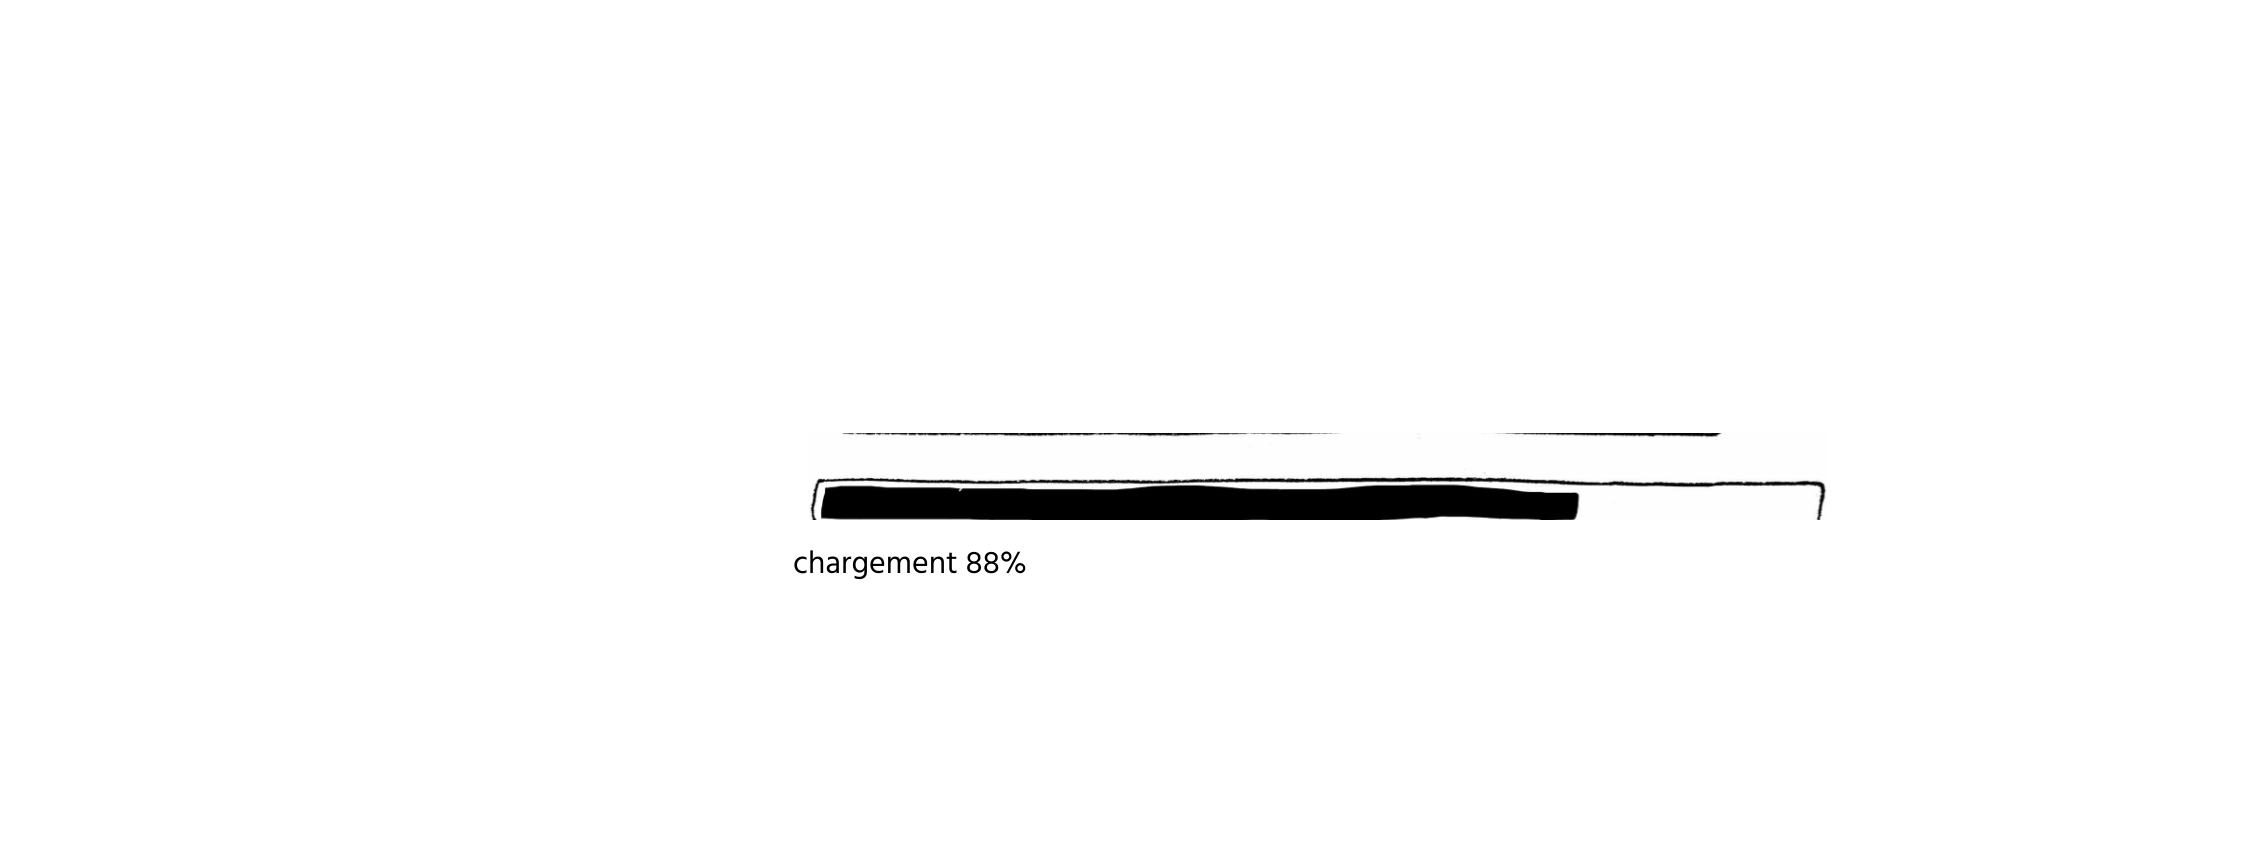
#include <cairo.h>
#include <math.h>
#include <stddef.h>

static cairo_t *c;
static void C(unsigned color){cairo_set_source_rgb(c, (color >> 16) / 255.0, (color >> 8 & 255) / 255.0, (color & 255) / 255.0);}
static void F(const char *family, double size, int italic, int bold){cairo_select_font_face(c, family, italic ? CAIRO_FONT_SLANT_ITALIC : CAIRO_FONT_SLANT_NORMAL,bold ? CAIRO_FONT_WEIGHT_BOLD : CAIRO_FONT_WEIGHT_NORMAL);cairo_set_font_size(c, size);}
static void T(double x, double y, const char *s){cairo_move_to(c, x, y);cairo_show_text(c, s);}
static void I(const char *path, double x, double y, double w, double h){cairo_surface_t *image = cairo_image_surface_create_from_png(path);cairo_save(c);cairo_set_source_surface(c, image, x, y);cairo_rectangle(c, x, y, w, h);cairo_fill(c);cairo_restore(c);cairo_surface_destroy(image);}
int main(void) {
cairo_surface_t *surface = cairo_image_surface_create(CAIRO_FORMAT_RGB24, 2266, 863);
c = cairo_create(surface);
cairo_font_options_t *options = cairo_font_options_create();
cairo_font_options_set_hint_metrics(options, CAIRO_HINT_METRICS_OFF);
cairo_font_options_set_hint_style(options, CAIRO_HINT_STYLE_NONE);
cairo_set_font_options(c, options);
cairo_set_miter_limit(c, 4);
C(0xffffff);
cairo_paint(c);
I("1.png",809,433,1018,87);
F("Hind",32,0,0);
C(0x000000);
T(793,573,"chargement 88%");
cairo_surface_write_to_png(surface, "o.png");
cairo_font_options_destroy(options);
cairo_destroy(c);
cairo_surface_destroy(surface);
return 0;
}
